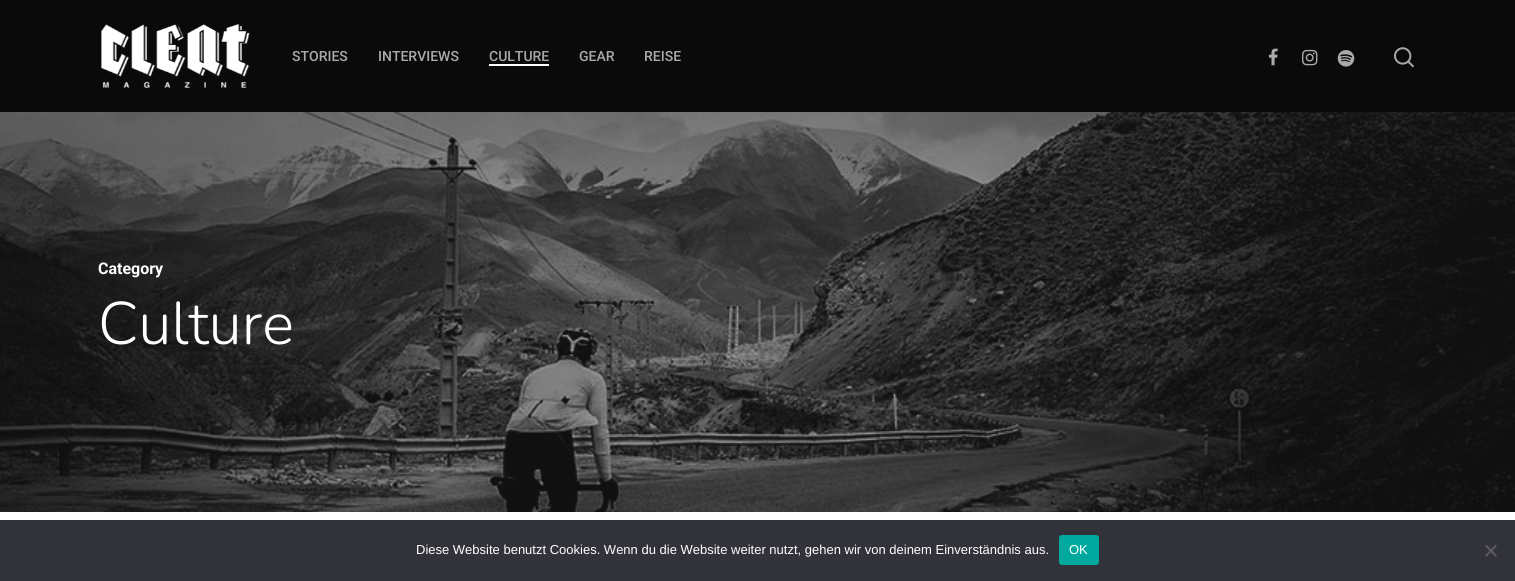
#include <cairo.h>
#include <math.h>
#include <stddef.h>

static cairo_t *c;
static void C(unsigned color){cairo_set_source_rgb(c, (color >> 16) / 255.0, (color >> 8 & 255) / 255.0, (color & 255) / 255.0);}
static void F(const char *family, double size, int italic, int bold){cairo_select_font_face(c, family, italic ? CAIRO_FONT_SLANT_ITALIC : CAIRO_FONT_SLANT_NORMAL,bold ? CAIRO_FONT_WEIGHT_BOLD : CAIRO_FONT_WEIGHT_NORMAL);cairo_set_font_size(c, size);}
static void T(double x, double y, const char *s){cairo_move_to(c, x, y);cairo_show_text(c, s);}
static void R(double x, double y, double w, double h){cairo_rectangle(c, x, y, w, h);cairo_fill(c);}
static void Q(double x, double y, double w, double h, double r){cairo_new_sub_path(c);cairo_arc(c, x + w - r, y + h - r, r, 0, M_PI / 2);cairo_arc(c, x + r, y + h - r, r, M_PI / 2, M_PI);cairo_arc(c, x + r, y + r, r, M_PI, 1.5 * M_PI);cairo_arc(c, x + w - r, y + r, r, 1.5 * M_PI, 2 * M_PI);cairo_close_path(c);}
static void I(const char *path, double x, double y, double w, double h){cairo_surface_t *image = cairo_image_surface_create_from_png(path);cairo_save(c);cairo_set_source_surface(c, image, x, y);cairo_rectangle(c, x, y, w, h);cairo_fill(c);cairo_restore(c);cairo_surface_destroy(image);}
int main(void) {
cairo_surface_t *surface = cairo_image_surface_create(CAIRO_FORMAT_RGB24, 1515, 581);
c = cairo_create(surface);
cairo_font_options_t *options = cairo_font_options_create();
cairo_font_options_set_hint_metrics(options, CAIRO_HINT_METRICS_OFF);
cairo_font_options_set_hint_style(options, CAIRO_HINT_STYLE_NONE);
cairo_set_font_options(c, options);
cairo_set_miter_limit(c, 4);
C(0xffffff);
cairo_paint(c);
C(0x0a0a0a);
R(0,0,1515,112);
I("1.png",101,24,149,64);
F("Roboto Medium",14,0,0);
C(0xaaaaaa);
T(292,61,"STORIES");
T(378,61,"INTERVIEWS");
T(489,61,"CULTURE");
C(0xffffff);
R(489,64,60,2);
C(0xaaaaaa);
T(579,61,"GEAR");
T(644,61,"REISE");
I("2.png",1268,48,10,18);
I("3.png",1302,49,16,17);
I("4.png",1337,50,18,17);
I("5.png",1394,47,20,21);
I("6.png",0,112,1515,400);
F("Roboto",16,0,1);
C(0xffffff);
T(98,274,"Category");
F("Nunito Light",60,0,0);
T(98,344,"Culture");
C(0x32323a);
R(0,520,1515,61);
F("Liberation Sans",13,0,0);
C(0xffffff);
T(416,554,"Diese Website benutzt Cookies. Wenn du die Website weiter nutzt, gehen wir von deinem Einverständnis aus.");
C(0x00a99d);
Q(1059,535,40,30,3);
cairo_fill(c);
C(0xffffff);
T(1069,554,"OK");
C(0x59595d);
cairo_new_path(c);
cairo_move_to(c,1495.5,544.5);
cairo_line_to(c,1497,546);
cairo_line_to(c,1486.5,557);
cairo_line_to(c,1485,555.5);
cairo_close_path(c);
cairo_fill(c);
cairo_new_path(c);
cairo_move_to(c,1485,546);
cairo_line_to(c,1486.5,544.5);
cairo_line_to(c,1497,555.5);
cairo_line_to(c,1495.5,557);
cairo_close_path(c);
cairo_fill(c);
cairo_surface_write_to_png(surface, "o.png");
cairo_font_options_destroy(options);
cairo_destroy(c);
cairo_surface_destroy(surface);
return 0;
}
